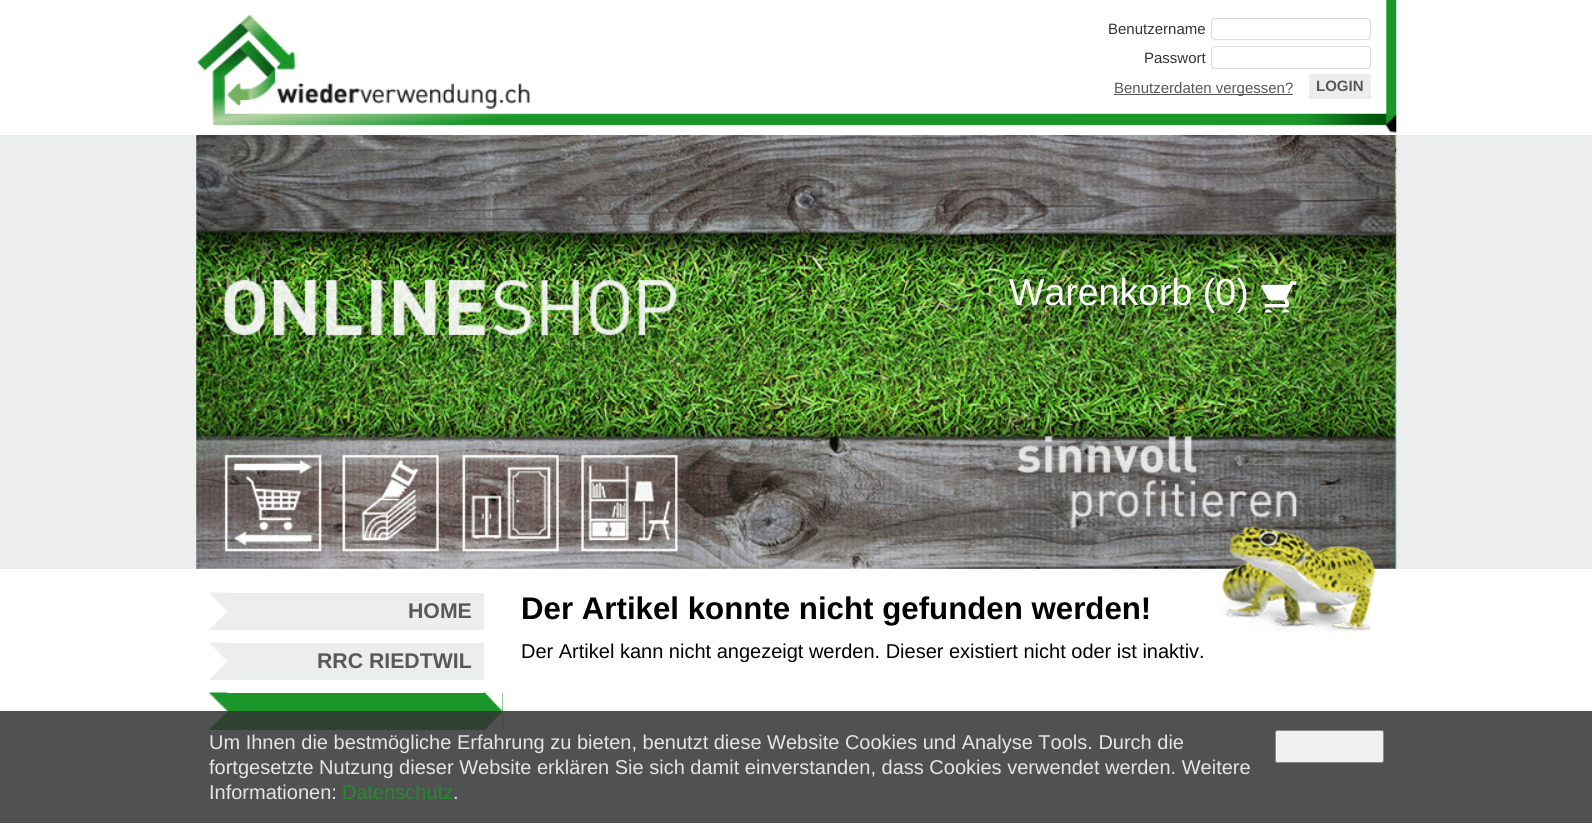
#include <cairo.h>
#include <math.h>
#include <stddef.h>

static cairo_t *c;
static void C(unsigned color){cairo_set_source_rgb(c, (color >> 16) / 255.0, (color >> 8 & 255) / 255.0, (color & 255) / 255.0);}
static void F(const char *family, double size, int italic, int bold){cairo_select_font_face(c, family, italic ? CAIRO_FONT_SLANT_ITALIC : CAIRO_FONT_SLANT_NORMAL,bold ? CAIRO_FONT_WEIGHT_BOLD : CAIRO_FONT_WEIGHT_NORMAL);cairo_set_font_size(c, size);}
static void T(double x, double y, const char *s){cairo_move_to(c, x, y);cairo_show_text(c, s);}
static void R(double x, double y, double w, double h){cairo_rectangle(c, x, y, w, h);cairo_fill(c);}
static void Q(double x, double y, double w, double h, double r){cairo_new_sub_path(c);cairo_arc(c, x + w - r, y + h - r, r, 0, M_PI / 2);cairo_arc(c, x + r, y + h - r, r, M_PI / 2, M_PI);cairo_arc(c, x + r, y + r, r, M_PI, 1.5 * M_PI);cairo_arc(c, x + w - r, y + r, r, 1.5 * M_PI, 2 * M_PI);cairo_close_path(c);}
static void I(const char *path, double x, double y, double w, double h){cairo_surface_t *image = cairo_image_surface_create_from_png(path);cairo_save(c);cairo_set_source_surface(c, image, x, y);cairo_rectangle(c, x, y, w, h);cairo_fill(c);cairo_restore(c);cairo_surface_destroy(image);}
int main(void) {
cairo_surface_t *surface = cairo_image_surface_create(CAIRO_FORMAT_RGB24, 1592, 823);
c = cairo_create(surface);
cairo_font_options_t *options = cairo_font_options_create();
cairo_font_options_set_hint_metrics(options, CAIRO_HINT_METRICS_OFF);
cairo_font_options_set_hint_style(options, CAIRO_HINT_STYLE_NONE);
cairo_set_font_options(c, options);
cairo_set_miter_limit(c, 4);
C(0xffffff);
cairo_paint(c);
I("1.png",197,0,1200,133);
F("Liberation Sans",15,0,0);
C(0x333333);
T(1108,34,"Benutzername");
Q(1211.5,18.5,159,21,3.5);
C(0xdbdbdb);
cairo_set_line_width(c,1);
cairo_stroke(c);
C(0x333333);
T(1144,63,"Passwort");
Q(1211.5,46.5,159,22,3.5);
C(0xdbdbdb);
cairo_stroke(c);
C(0x58585a);
R(1114,94,179,1);
T(1114,93,"Benutzerdaten vergessen?");
C(0xeceded);
R(1309,74,62,25);
F("Liberation Sans",15,0,1);
C(0x58585a);
T(1316,91,"LOGIN");
C(0xeceded);
R(0,135,1592,434);
I("2.png",196,135,1201,434);
F("Liberation Sans",37.5,0,0);
C(0xffffff);
T(1009,305,"Warenkorb (0)");
I("3.png",1261,281,36,32);
I("4.png",1221,526,155,107);
C(0xeceded);
R(227,593,257,37);
I("5.png",209,592,19,38);
F("Liberation Sans",21.25,0,1);
C(0x58585a);
T(408,618,"HOME");
C(0xeceded);
R(227,643,257,37);
I("5.png",209,642,19,38);
C(0x58585a);
T(317,668,"RRC RIEDTWIL");
C(0x1a962b);
R(227,693,276,37);
I("6.png",208,692,20,38);
I("7.png",483,692,20,38);
F("Liberation Sans",31.25,0,1);
C(0x000000);
T(521,619,"Der Artikel konnte nicht gefunden werden!");
F("Liberation Sans",20,0,0);
T(521,658,"Der Artikel kann nicht angezeigt werden. Dieser existiert nicht oder ist inaktiv.");
cairo_set_source_rgba(c,0.2,0.2,0.2,0.85);
R(0,711,1592,112);
C(0xe5e5e5);
T(209,749,"Um Ihnen die bestmögliche Erfahrung zu bieten, benutzt diese Website Cookies und Analyse Tools. Durch die");
C(0xf1f1f1);
Q(1275.5,730.5,108,32,2);
cairo_fill_preserve(c);
C(0x8b8b8b);
cairo_stroke(c);
C(0xe5e5e5);
T(209,774,"fortgesetzte Nutzung dieser Website erklären Sie sich damit einverstanden, dass Cookies verwendet werden. Weitere");
T(209,799,"Informationen:");
C(0x218b30);
T(342,799,"Datenschutz");
C(0xe5e5e5);
T(453,799,".");
cairo_surface_write_to_png(surface, "o.png");
cairo_font_options_destroy(options);
cairo_destroy(c);
cairo_surface_destroy(surface);
return 0;
}
